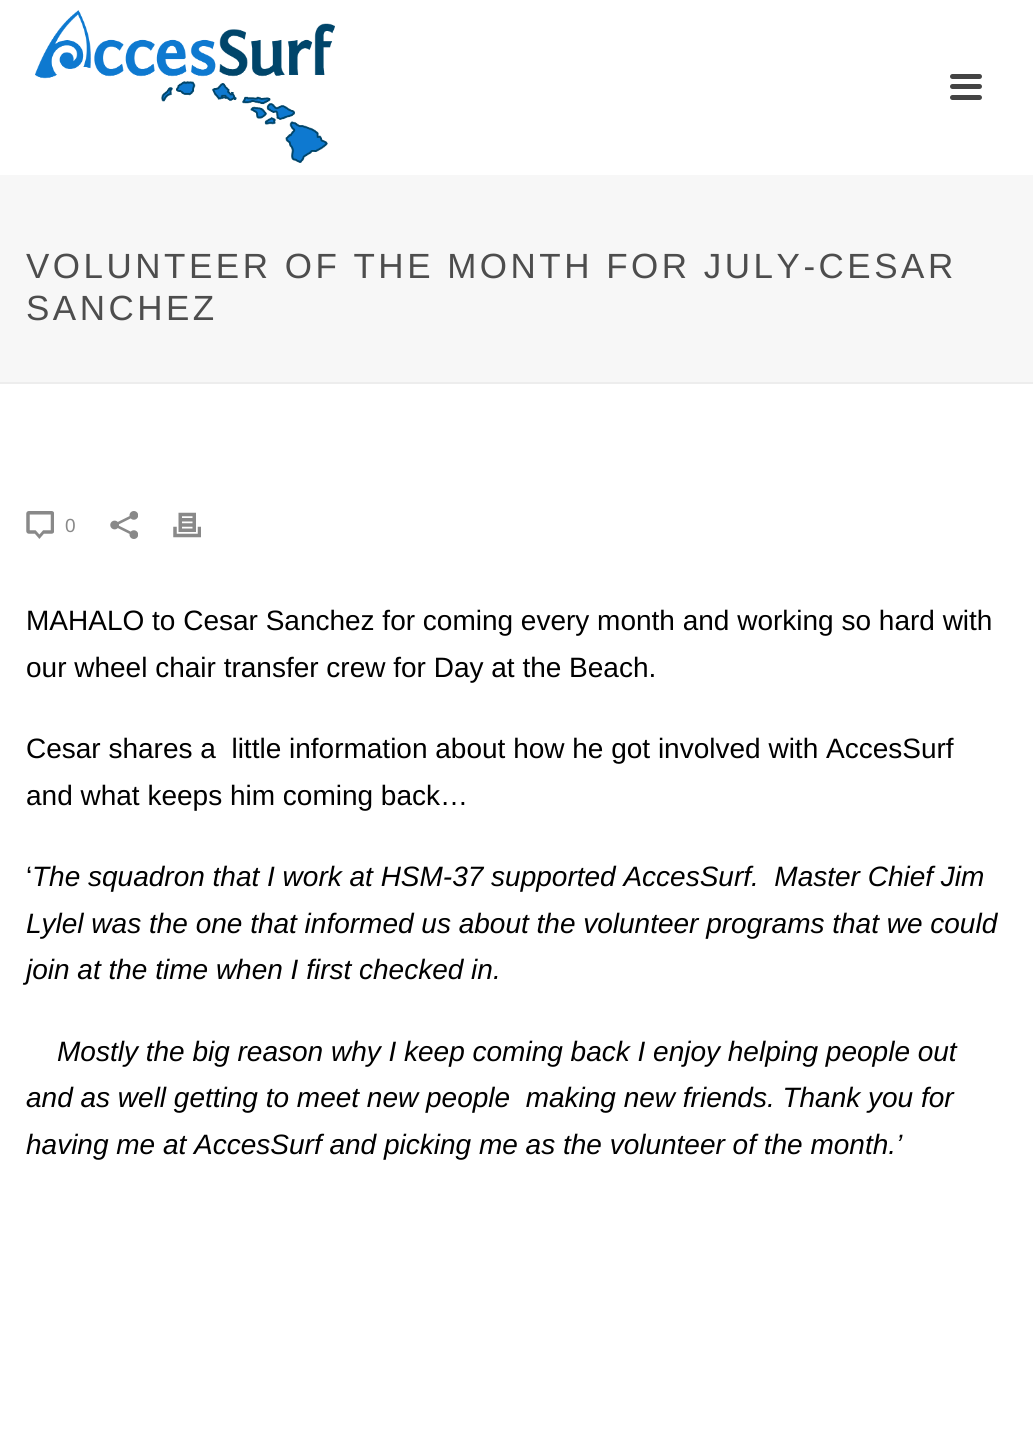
#include <cairo.h>
#include <math.h>
#include <stddef.h>

static cairo_t *c;
static void C(unsigned color){cairo_set_source_rgb(c, (color >> 16) / 255.0, (color >> 8 & 255) / 255.0, (color & 255) / 255.0);}
static void F(const char *family, double size, int italic, int bold){cairo_select_font_face(c, family, italic ? CAIRO_FONT_SLANT_ITALIC : CAIRO_FONT_SLANT_NORMAL,bold ? CAIRO_FONT_WEIGHT_BOLD : CAIRO_FONT_WEIGHT_NORMAL);cairo_set_font_size(c, size);}
static void T(double x, double y, const char *s){cairo_move_to(c, x, y);cairo_show_text(c, s);}
static void L(double x, double y, const char *s, double letter, double word){cairo_move_to(c, x, y);while (*s) {char ch[5] = {0};int n = 0;do ch[n++] = *s++; while ((*s & 0xC0) == 0x80);cairo_show_text(c, ch);cairo_rel_move_to(c, letter + word * (*ch == ' '), 0);}}
static void R(double x, double y, double w, double h){cairo_rectangle(c, x, y, w, h);cairo_fill(c);}
static void Q(double x, double y, double w, double h, double r){cairo_new_sub_path(c);cairo_arc(c, x + w - r, y + h - r, r, 0, M_PI / 2);cairo_arc(c, x + r, y + h - r, r, M_PI / 2, M_PI);cairo_arc(c, x + r, y + r, r, M_PI, 1.5 * M_PI);cairo_arc(c, x + w - r, y + r, r, 1.5 * M_PI, 2 * M_PI);cairo_close_path(c);}
static void I(const char *path, double x, double y, double w, double h){cairo_surface_t *image = cairo_image_surface_create_from_png(path);cairo_save(c);cairo_set_source_surface(c, image, x, y);cairo_rectangle(c, x, y, w, h);cairo_fill(c);cairo_restore(c);cairo_surface_destroy(image);}
int main(void) {
cairo_surface_t *surface = cairo_image_surface_create(CAIRO_FORMAT_RGB24, 1033, 1450);
c = cairo_create(surface);
cairo_font_options_t *options = cairo_font_options_create();
cairo_font_options_set_hint_metrics(options, CAIRO_HINT_METRICS_OFF);
cairo_font_options_set_hint_style(options, CAIRO_HINT_STYLE_NONE);
cairo_set_font_options(c, options);
cairo_set_miter_limit(c, 4);
C(0xffffff);
cairo_paint(c);
C(0xededed);
R(0,382,1033,2);
I("1.png",35,10,300,153);
C(0x444444);
Q(950,74,32,5,2.5);
cairo_fill(c);
Q(950,84,32,5,2.5);
cairo_fill(c);
Q(950,95,32,5,2.5);
cairo_fill(c);
C(0xf7f7f7);
R(0,175,1033,207);
F("Liberation Sans",35,0,0);
C(0x4d4d4d);
L(26,278,"VOLUNTEER OF THE MONTH FOR JULY-CESAR",3.5,0);
L(26,320,"SANCHEZ",3.5,0);
I("2.png",26,511,28,28);
F("Liberation Sans",19,0,0);
C(0x898989);
T(65,532,"0");
I("3.png",110,511,28,28);
I("4.png",173,512,28,26);
F("Liberation Sans",28,0,0);
C(0x000000);
T(26,630,"MAHALO to Cesar Sanchez for coming every month and working so hard with");
T(26,677,"our wheel chair transfer crew for Day at the Beach.");
T(26,758,"Cesar shares a  little information about how he got involved with AccesSurf");
T(26,805,"and what keeps him coming back…");
T(26,886,"‘");
F("Liberation Sans",28,1,0);
T(32,886,"The squadron that I work at HSM-37 supported AccesSurf.  Master Chief Jim");
T(26,933,"Lylel was the one that informed us about the volunteer programs that we could");
T(26,979,"join at the time when I first checked in.");
T(57,1061,"Mostly the big reason why I keep coming back I enjoy helping people out");
T(26,1107,"and as well getting to meet new people  making new friends. Thank you for");
T(26,1154,"having me at AccesSurf and picking me as the volunteer of the month.’");
cairo_surface_write_to_png(surface, "o.png");
cairo_font_options_destroy(options);
cairo_destroy(c);
cairo_surface_destroy(surface);
return 0;
}
